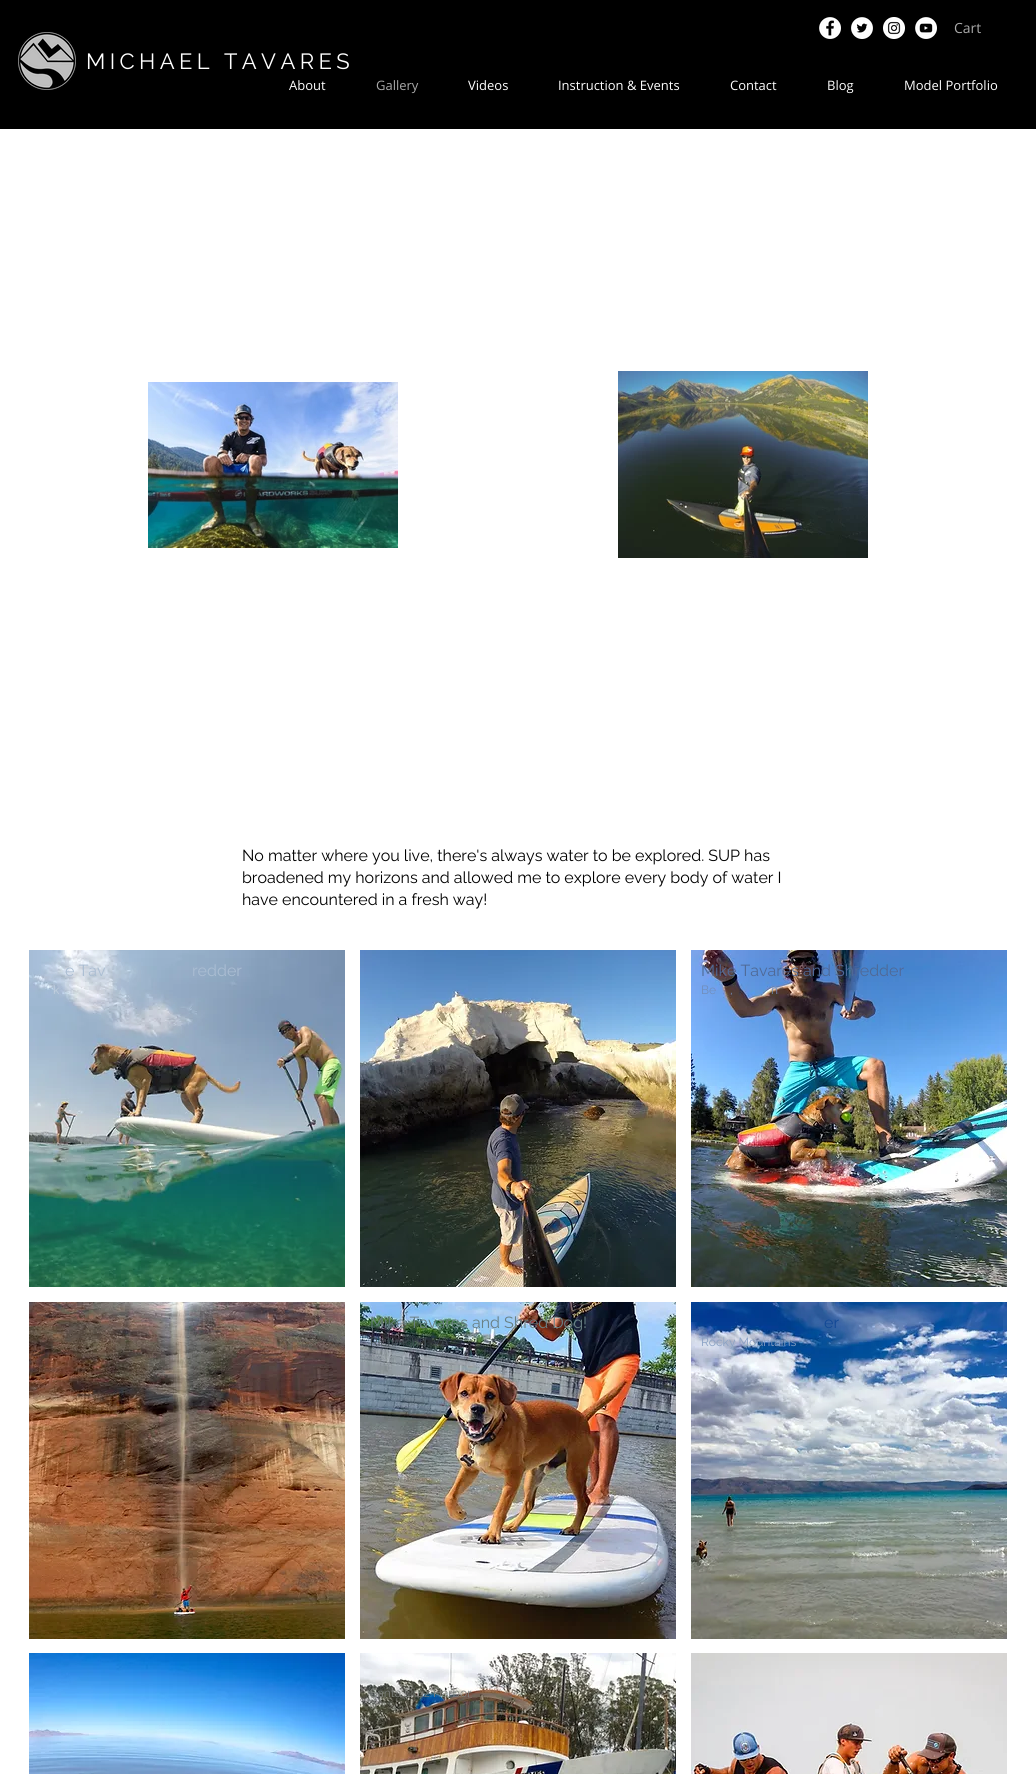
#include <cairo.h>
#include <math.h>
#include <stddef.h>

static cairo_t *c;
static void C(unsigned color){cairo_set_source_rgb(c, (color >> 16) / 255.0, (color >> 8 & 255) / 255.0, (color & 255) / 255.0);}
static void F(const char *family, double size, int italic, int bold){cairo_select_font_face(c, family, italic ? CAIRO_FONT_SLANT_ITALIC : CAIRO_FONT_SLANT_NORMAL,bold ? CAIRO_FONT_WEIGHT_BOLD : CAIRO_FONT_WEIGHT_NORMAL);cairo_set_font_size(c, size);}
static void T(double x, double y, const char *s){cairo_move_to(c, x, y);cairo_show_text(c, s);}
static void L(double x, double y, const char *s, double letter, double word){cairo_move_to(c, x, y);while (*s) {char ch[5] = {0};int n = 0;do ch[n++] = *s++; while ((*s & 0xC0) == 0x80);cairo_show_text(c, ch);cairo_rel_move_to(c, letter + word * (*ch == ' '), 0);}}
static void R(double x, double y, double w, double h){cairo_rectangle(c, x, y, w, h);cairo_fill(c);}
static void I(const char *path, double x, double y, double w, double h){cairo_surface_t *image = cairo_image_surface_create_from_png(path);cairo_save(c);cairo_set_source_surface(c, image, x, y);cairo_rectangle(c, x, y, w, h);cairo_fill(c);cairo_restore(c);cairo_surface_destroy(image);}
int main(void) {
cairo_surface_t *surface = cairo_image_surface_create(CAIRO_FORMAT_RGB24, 1036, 1774);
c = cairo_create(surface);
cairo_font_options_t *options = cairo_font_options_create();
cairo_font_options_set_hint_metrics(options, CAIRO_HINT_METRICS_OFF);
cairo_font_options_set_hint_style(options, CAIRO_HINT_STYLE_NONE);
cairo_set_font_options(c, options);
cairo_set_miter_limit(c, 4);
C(0xffffff);
cairo_paint(c);
C(0x000000);
R(0,0,1036,129);
I("1.png",18,32,58,58);
F("Raleway",22,0,0);
C(0xffffff);
L(86,69,"MICHAEL TAVARES",4.4,0);
I("2.png",819,17,22,22);
I("3.png",851,17,22,22);
I("4.png",883,17,22,22);
I("5.png",915,17,22,22);
F("Open Sans",14,0,0);
C(0xa9a9a9);
T(954,33,"Cart");
F("Open Sans",13,0,0);
C(0xffffff);
T(289,90,"About");
C(0xa9a9a9);
T(376,90,"Gallery");
C(0xffffff);
T(468,90,"Videos");
T(558,90,"Instruction & Events");
T(730,90,"Contact");
T(827,90,"Blog");
T(904,90,"Model Portfolio");
I("6.png",148,382,250,166);
I("7.png",618,371,250,187);
F("Raleway",16,0,0);
C(0x000000);
T(242,861,"No matter where you live, there's always water to be explored. SUP has");
T(242,883,"broadened my horizons and allowed me to explore every body of water I");
T(242,905,"have encountered in a fresh way!");
I("8.png",29,950,316,337);
C(0xaabdd2);
T(65,976,"e Tav");
T(192,976,"redder");
F("Raleway",12,0,0);
C(0xc2cfde);
T(53,994,"k");
I("9.png",360,950,316,337);
I("10.png",691,950,316,337);
F("Raleway",16,0,0);
C(0x4f6996);
T(701,976,"Mike Tavares and Shredder");
F("Raleway",12,0,0);
C(0x718db9);
T(701,994,"Be");
T(730,994,",");
T(771,994,"n");
I("11.png",29,1302,316,337);
I("12.png",360,1302,316,337);
F("Raleway",16,0,0);
C(0x698084);
T(370,1328,"Mike Tavares and Shred Dog!");
F("Raleway",12,0,0);
C(0x404b51);
T(370,1346,"Richmond, VA");
I("13.png",691,1302,316,337);
F("Raleway",16,0,0);
C(0x114896);
T(824,1328,"er");
F("Raleway",12,0,0);
C(0x89a1c4);
T(701,1346,"Rocky Mountains");
I("14.png",29,1653,316,121);
I("15.png",360,1653,316,121);
C(0x7e817d);
T(370,1697,"Santa Cruz Harbor");
I("16.png",691,1653,316,121);
cairo_surface_write_to_png(surface, "o.png");
cairo_font_options_destroy(options);
cairo_destroy(c);
cairo_surface_destroy(surface);
return 0;
}
